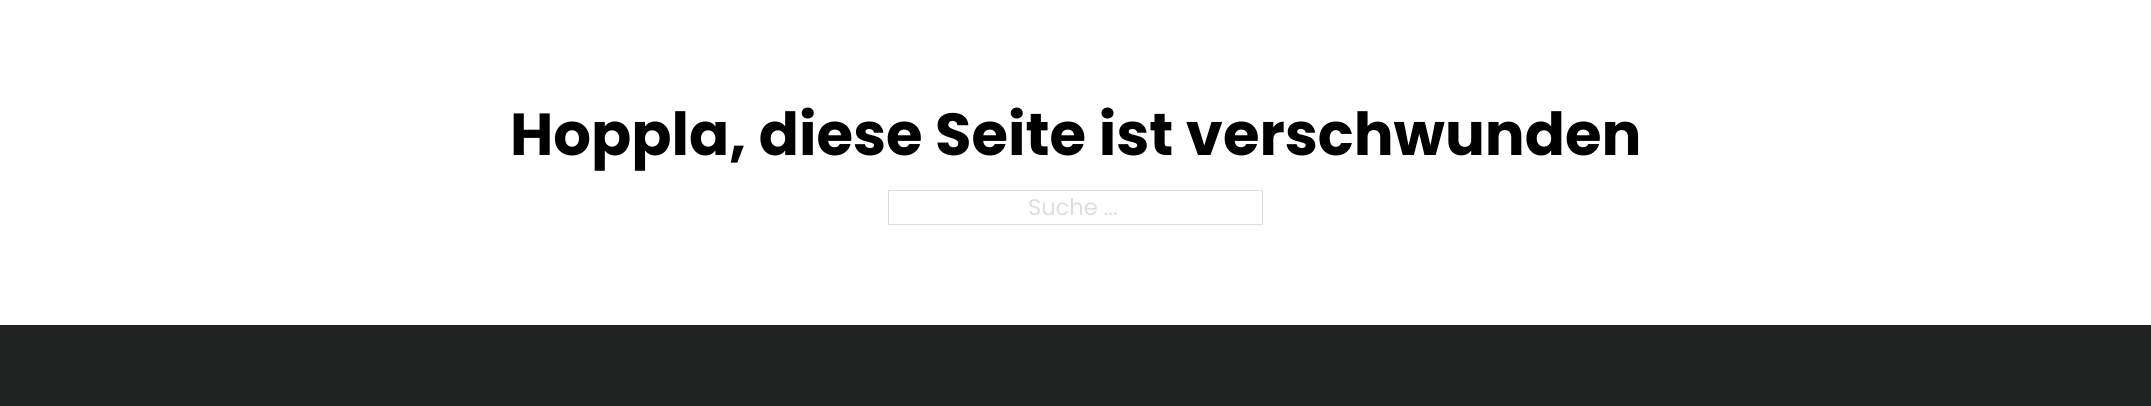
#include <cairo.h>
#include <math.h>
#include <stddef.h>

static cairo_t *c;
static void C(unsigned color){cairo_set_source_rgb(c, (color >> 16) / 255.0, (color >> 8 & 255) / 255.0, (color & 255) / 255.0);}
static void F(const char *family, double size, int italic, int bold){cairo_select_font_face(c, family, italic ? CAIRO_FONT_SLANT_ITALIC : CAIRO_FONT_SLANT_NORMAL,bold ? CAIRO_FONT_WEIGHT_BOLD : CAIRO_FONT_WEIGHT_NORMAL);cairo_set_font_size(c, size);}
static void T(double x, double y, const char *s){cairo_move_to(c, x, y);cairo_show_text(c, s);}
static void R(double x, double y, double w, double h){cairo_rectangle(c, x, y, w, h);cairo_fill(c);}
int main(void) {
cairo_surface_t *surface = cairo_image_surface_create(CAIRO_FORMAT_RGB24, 2151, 406);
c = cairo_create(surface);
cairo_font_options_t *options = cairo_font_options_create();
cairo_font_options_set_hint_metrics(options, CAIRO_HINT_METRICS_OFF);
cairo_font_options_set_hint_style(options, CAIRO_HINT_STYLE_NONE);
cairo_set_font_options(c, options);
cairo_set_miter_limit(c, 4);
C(0xffffff);
cairo_paint(c);
F("Poppins",59.25,0,1);
C(0x000000);
T(510,155,"Hoppla, diese Seite ist verschwunden");
cairo_rectangle(c,888.5,190.5,374,34);
C(0xdddedf);
cairo_set_line_width(c,1);
cairo_stroke(c);
F("Poppins",22.5,0,0);
T(1028,215,"Suche ...");
C(0x202121);
R(0,325,2151,81);
cairo_surface_write_to_png(surface, "o.png");
cairo_font_options_destroy(options);
cairo_destroy(c);
cairo_surface_destroy(surface);
return 0;
}
